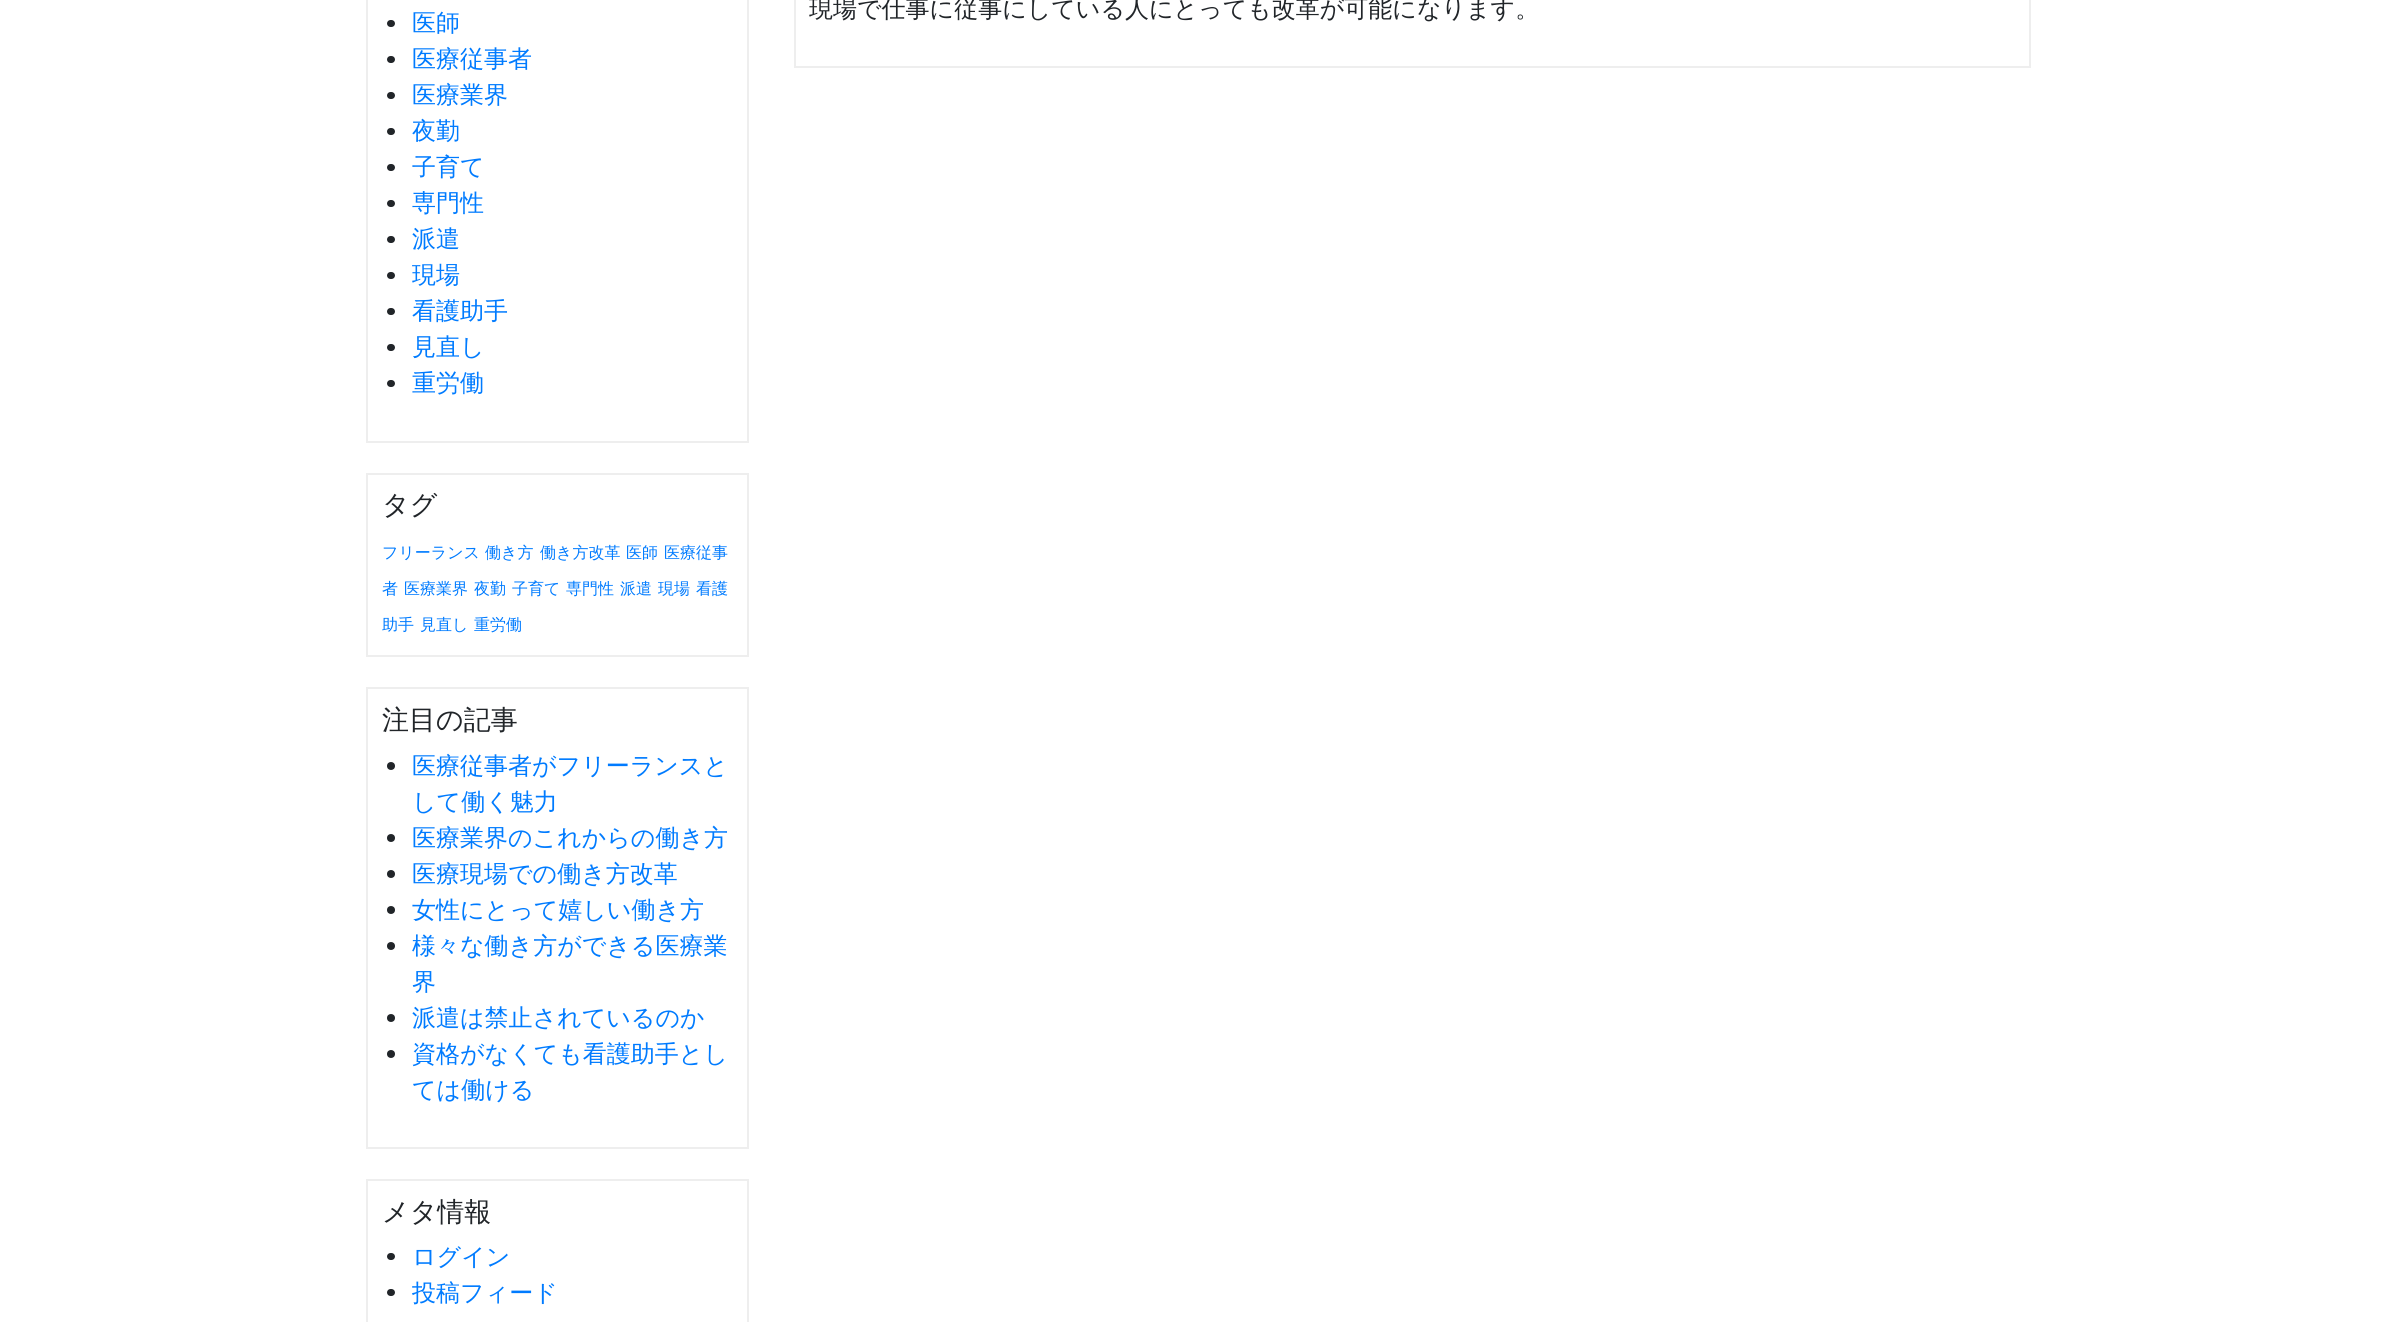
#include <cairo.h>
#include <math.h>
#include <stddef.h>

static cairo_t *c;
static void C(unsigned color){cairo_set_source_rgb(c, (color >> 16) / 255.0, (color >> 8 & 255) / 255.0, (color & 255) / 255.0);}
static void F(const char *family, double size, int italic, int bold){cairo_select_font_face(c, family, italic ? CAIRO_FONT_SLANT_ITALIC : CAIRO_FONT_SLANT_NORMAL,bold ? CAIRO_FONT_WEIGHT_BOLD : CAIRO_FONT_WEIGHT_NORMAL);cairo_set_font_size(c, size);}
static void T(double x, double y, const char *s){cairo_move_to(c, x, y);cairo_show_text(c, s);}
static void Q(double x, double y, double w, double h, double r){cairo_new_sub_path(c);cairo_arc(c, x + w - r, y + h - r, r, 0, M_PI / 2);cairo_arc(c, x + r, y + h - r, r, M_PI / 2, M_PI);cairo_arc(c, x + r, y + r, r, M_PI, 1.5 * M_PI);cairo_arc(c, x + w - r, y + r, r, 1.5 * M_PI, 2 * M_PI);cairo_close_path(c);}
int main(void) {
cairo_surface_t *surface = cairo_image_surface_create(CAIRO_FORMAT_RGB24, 2395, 1322);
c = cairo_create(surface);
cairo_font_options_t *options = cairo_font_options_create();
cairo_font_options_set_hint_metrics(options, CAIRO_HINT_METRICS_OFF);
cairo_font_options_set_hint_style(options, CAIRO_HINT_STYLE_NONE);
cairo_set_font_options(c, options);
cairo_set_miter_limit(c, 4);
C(0xffffff);
cairo_paint(c);
cairo_rectangle(c,367,-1,381,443);
C(0xeeeeee);
cairo_stroke(c);
C(0x212529);
Q(387,20,8,7,3.5);
cairo_fill(c);
F("WenQuanYi Zen Hei Medium",24,0,0);
C(0x007bff);
T(412,31,"医師");
C(0x212529);
Q(387,56,8,7,3.5);
cairo_fill(c);
C(0x007bff);
T(412,67,"医療従事者");
C(0x212529);
Q(387,92,8,7,3.5);
cairo_fill(c);
C(0x007bff);
T(412,103,"医療業界");
C(0x212529);
Q(387,128,8,7,3.5);
cairo_fill(c);
C(0x007bff);
T(412,139,"夜勤");
C(0x212529);
Q(387,164,8,7,3.5);
cairo_fill(c);
C(0x007bff);
T(412,175,"子育て");
C(0x212529);
Q(387,200,8,7,3.5);
cairo_fill(c);
C(0x007bff);
T(412,211,"専門性");
C(0x212529);
Q(387,236,8,7,3.5);
cairo_fill(c);
C(0x007bff);
T(412,247,"派遣");
C(0x212529);
Q(387,272,8,7,3.5);
cairo_fill(c);
C(0x007bff);
T(412,283,"現場");
C(0x212529);
Q(387,308,8,7,3.5);
cairo_fill(c);
C(0x007bff);
T(412,319,"看護助手");
C(0x212529);
Q(387,344,8,7,3.5);
cairo_fill(c);
C(0x007bff);
T(412,355,"見直し");
C(0x212529);
Q(387,380,8,7,3.5);
cairo_fill(c);
C(0x007bff);
T(412,391,"重労働");
cairo_rectangle(c,367,474,381,182);
C(0xeeeeee);
cairo_stroke(c);
F("WenQuanYi Zen Hei Medium",27,0,0);
C(0x212529);
T(382,514,"タグ");
F("WenQuanYi Zen Hei Medium",16,0,0);
C(0x007bff);
T(382,558,"フリーランス");
T(485,558,"働き方");
T(540,558,"働き方改革");
T(626,558,"医師");
T(664,558,"医療従事");
T(382,594,"者");
T(404,594,"医療業界");
T(474,594,"夜勤");
T(512,594,"子育て");
T(566,594,"専門性");
T(620,594,"派遣");
T(658,594,"現場");
T(696,594,"看護");
T(382,630,"助手");
T(420,630,"見直し");
T(474,630,"重労働");
cairo_rectangle(c,367,688,381,460);
C(0xeeeeee);
cairo_stroke(c);
F("WenQuanYi Zen Hei Medium",27,0,0);
C(0x212529);
T(382,729,"注目の記事");
cairo_new_path(c);
cairo_arc(c,391,766,4,0,2 * M_PI);
cairo_fill(c);
F("WenQuanYi Zen Hei Medium",24,0,0);
C(0x007bff);
T(412,774,"医療従事者がフリーランスと");
T(412,810,"して働く魅力");
C(0x212529);
cairo_new_path(c);
cairo_arc(c,391,838,4,0,2 * M_PI);
cairo_fill(c);
C(0x007bff);
T(412,846,"医療業界のこれからの働き方");
C(0x212529);
cairo_new_path(c);
cairo_arc(c,391,874,4,0,2 * M_PI);
cairo_fill(c);
C(0x007bff);
T(412,882,"医療現場での働き方改革");
C(0x212529);
cairo_new_path(c);
cairo_arc(c,391,910,4,0,2 * M_PI);
cairo_fill(c);
C(0x007bff);
T(412,918,"女性にとって嬉しい働き方");
C(0x212529);
cairo_new_path(c);
cairo_arc(c,391,946,4,0,2 * M_PI);
cairo_fill(c);
C(0x007bff);
T(412,954,"様々な働き方ができる医療業");
T(412,990,"界");
C(0x212529);
cairo_new_path(c);
cairo_arc(c,391,1018,4,0,2 * M_PI);
cairo_fill(c);
C(0x007bff);
T(412,1026,"派遣は禁止されているのか");
C(0x212529);
cairo_new_path(c);
cairo_arc(c,391,1054,4,0,2 * M_PI);
cairo_fill(c);
C(0x007bff);
T(412,1062,"資格がなくても看護助手とし");
T(412,1098,"ては働ける");
cairo_rectangle(c,367,1180,381,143);
C(0xeeeeee);
cairo_stroke(c);
F("WenQuanYi Zen Hei Medium",27,0,0);
C(0x212529);
T(382,1221,"メタ情報");
Q(387,1253,8,7,3.5);
cairo_fill(c);
F("WenQuanYi Zen Hei Medium",24,0,0);
C(0x007bff);
T(412,1265,"ログイン");
C(0x212529);
Q(387,1289,8,7,3.5);
cairo_fill(c);
C(0x007bff);
T(412,1301,"投稿フィード");
cairo_rectangle(c,795,-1,1235,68);
C(0xeeeeee);
cairo_stroke(c);
C(0x212529);
T(809,17,"現場で仕事に従事にしている人にとっても改革が可能になります。");
cairo_surface_write_to_png(surface, "o.png");
cairo_font_options_destroy(options);
cairo_destroy(c);
cairo_surface_destroy(surface);
return 0;
}
